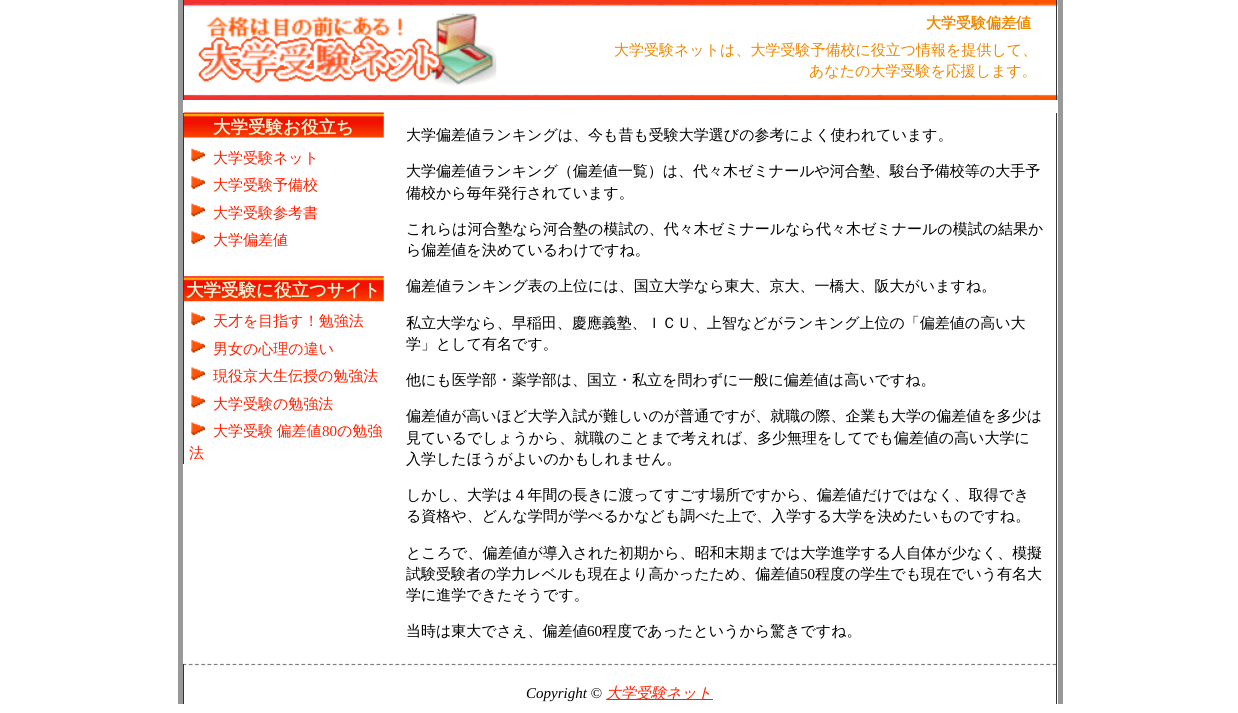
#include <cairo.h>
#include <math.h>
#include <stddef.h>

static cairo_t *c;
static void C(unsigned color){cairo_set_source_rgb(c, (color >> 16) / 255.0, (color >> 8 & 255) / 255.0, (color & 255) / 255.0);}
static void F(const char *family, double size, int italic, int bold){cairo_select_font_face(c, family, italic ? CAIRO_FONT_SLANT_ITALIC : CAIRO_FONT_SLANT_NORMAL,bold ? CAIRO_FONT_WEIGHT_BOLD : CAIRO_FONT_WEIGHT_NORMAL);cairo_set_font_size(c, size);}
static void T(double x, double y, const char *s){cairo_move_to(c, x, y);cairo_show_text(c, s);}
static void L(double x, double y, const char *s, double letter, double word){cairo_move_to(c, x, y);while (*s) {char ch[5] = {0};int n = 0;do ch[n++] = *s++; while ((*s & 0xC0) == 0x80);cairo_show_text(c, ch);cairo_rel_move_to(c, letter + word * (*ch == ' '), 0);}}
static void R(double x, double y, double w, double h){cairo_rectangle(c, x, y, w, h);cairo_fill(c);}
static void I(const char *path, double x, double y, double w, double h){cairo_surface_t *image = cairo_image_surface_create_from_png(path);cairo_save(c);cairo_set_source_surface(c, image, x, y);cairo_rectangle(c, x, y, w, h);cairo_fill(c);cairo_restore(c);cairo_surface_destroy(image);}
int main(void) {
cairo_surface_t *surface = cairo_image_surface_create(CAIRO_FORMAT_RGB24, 1238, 713);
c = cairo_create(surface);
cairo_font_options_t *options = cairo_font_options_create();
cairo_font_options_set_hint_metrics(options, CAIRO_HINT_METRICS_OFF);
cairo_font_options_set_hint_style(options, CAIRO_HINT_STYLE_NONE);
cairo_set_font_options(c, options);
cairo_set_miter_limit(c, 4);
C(0xffffff);
cairo_paint(c);
C(0x999999);
R(1058,0,5,704);
R(178,0,5,704);
I("1.png",184,0,874,100);
C(0x333333);
R(1056,0,1,100);
R(183,0,1,100);
I("2.png",198,13,299,75);
F("WenQuanYi Zen Hei",15,0,1);
C(0xee8800);
T(926,28,"大学受験偏差値");
F("WenQuanYi Zen Hei Medium",15,0,0);
T(614,55,"大学受験ネットは、大学受験予備校に役立つ情報を提供して、");
T(809,76,"あなたの大学受験を応援します。");
C(0x333333);
R(183,113,1,351);
I("3.png",183,112,201,26);
F("WenQuanYi Zen Hei",17.5,0,1);
C(0xeeeecc);
T(213,133,"大学受験お役立ち");
I("4.png",191,148,14,14);
F("WenQuanYi Zen Hei Medium",15,0,0);
C(0xff2100);
T(213,163,"大学受験ネット");
I("5.png",191,176,14,13);
T(213,190,"大学受験予備校");
I("4.png",191,203,14,14);
T(213,218,"大学受験参考書");
I("5.png",191,231,14,13);
T(213,245,"大学偏差値");
I("6.png",183,276,201,26);
F("WenQuanYi Zen Hei",17.5,0,1);
C(0xeeeecc);
T(186,296,"大学受験に役立つサイト");
I("7.png",191,312,14,14);
F("WenQuanYi Zen Hei Medium",15,0,0);
C(0xff2100);
T(213,326,"天才を目指す！勉強法");
I("8.png",191,339,14,14);
T(213,354,"男女の心理の違い");
I("7.png",191,367,14,14);
T(213,381,"現役京大生伝授の勉強法");
I("8.png",191,394,14,14);
T(213,409,"大学受験の勉強法");
I("7.png",191,422,14,14);
L(213,436,"大学受験 偏差値",0,-1);
F("Liberation Serif",15,0,0);
T(322,436,"80");
F("WenQuanYi Zen Hei Medium",15,0,0);
T(337,436,"の勉強");
T(189,458,"法");
C(0x000000);
T(406,140,"大学偏差値ランキングは、今も昔も受験大学選びの参考によく使われています。");
T(406,176,"大学偏差値ランキング（偏差値一覧）は、代々木ゼミナールや河合塾、駿台予備校等の大手予");
T(406,198,"備校から毎年発行されています。");
T(406,234,"これらは河合塾なら河合塾の模試の、代々木ゼミナールなら代々木ゼミナールの模試の結果か");
T(406,255,"ら偏差値を決めているわけですね。");
T(406,291,"偏差値ランキング表の上位には、国立大学なら東大、京大、一橋大、阪大がいますね。");
T(406,328,"私立大学なら、早稲田、慶應義塾、ＩＣＵ、上智などがランキング上位の「偏差値の高い大");
T(406,349,"学」として有名です。");
T(406,385,"他にも医学部・薬学部は、国立・私立を問わずに一般に偏差値は高いですね。");
T(406,421,"偏差値が高いほど大学入試が難しいのが普通ですが、就職の際、企業も大学の偏差値を多少は");
T(406,443,"見ているでしょうから、就職のことまで考えれば、多少無理をしてでも偏差値の高い大学に");
T(406,464,"入学したほうがよいのかもしれません。");
T(406,500,"しかし、大学は４年間の長きに渡ってすごす場所ですから、偏差値だけではなく、取得でき");
T(406,521,"る資格や、どんな学問が学べるかなども調べた上で、入学する大学を決めたいものですね。");
T(406,558,"ところで、偏差値が導入された初期から、昭和末期までは大学進学する人自体が少なく、模擬");
T(406,579,"試験受験者の学力レベルも現在より高かったため、偏差値");
F("Liberation Serif",15,0,0);
T(800,579,"50");
F("WenQuanYi Zen Hei Medium",15,0,0);
T(815,579,"程度の学生でも現在でいう有名大");
T(406,600,"学に進学できたそうです。");
T(406,636,"当時は東大でさえ、偏差値");
F("Liberation Serif",15,0,0);
T(587,636,"60");
F("WenQuanYi Zen Hei Medium",15,0,0);
T(602,636,"程度であったというから驚きですね。");
cairo_new_path(c);
cairo_move_to(c,182.5,664.5);
cairo_line_to(c,1057.5,664.5);
C(0x808080);
cairo_set_line_width(c,1.2);
cairo_set_dash(c,(double[]){3.75,2.51},2,0);
cairo_stroke(c);
C(0x333333);
R(1056,113,1,591);
R(183,664,1,40);
F("Liberation Serif",15,1,0);
C(0x000000);
T(526,698,"Copyright ©");
C(0xff2100);
R(606,699,107,1);
F("WenQuanYi Zen Hei Medium",15,1,0);
T(606,698,"大学受験ネット");
cairo_surface_write_to_png(surface, "o.png");
cairo_font_options_destroy(options);
cairo_destroy(c);
cairo_surface_destroy(surface);
return 0;
}
